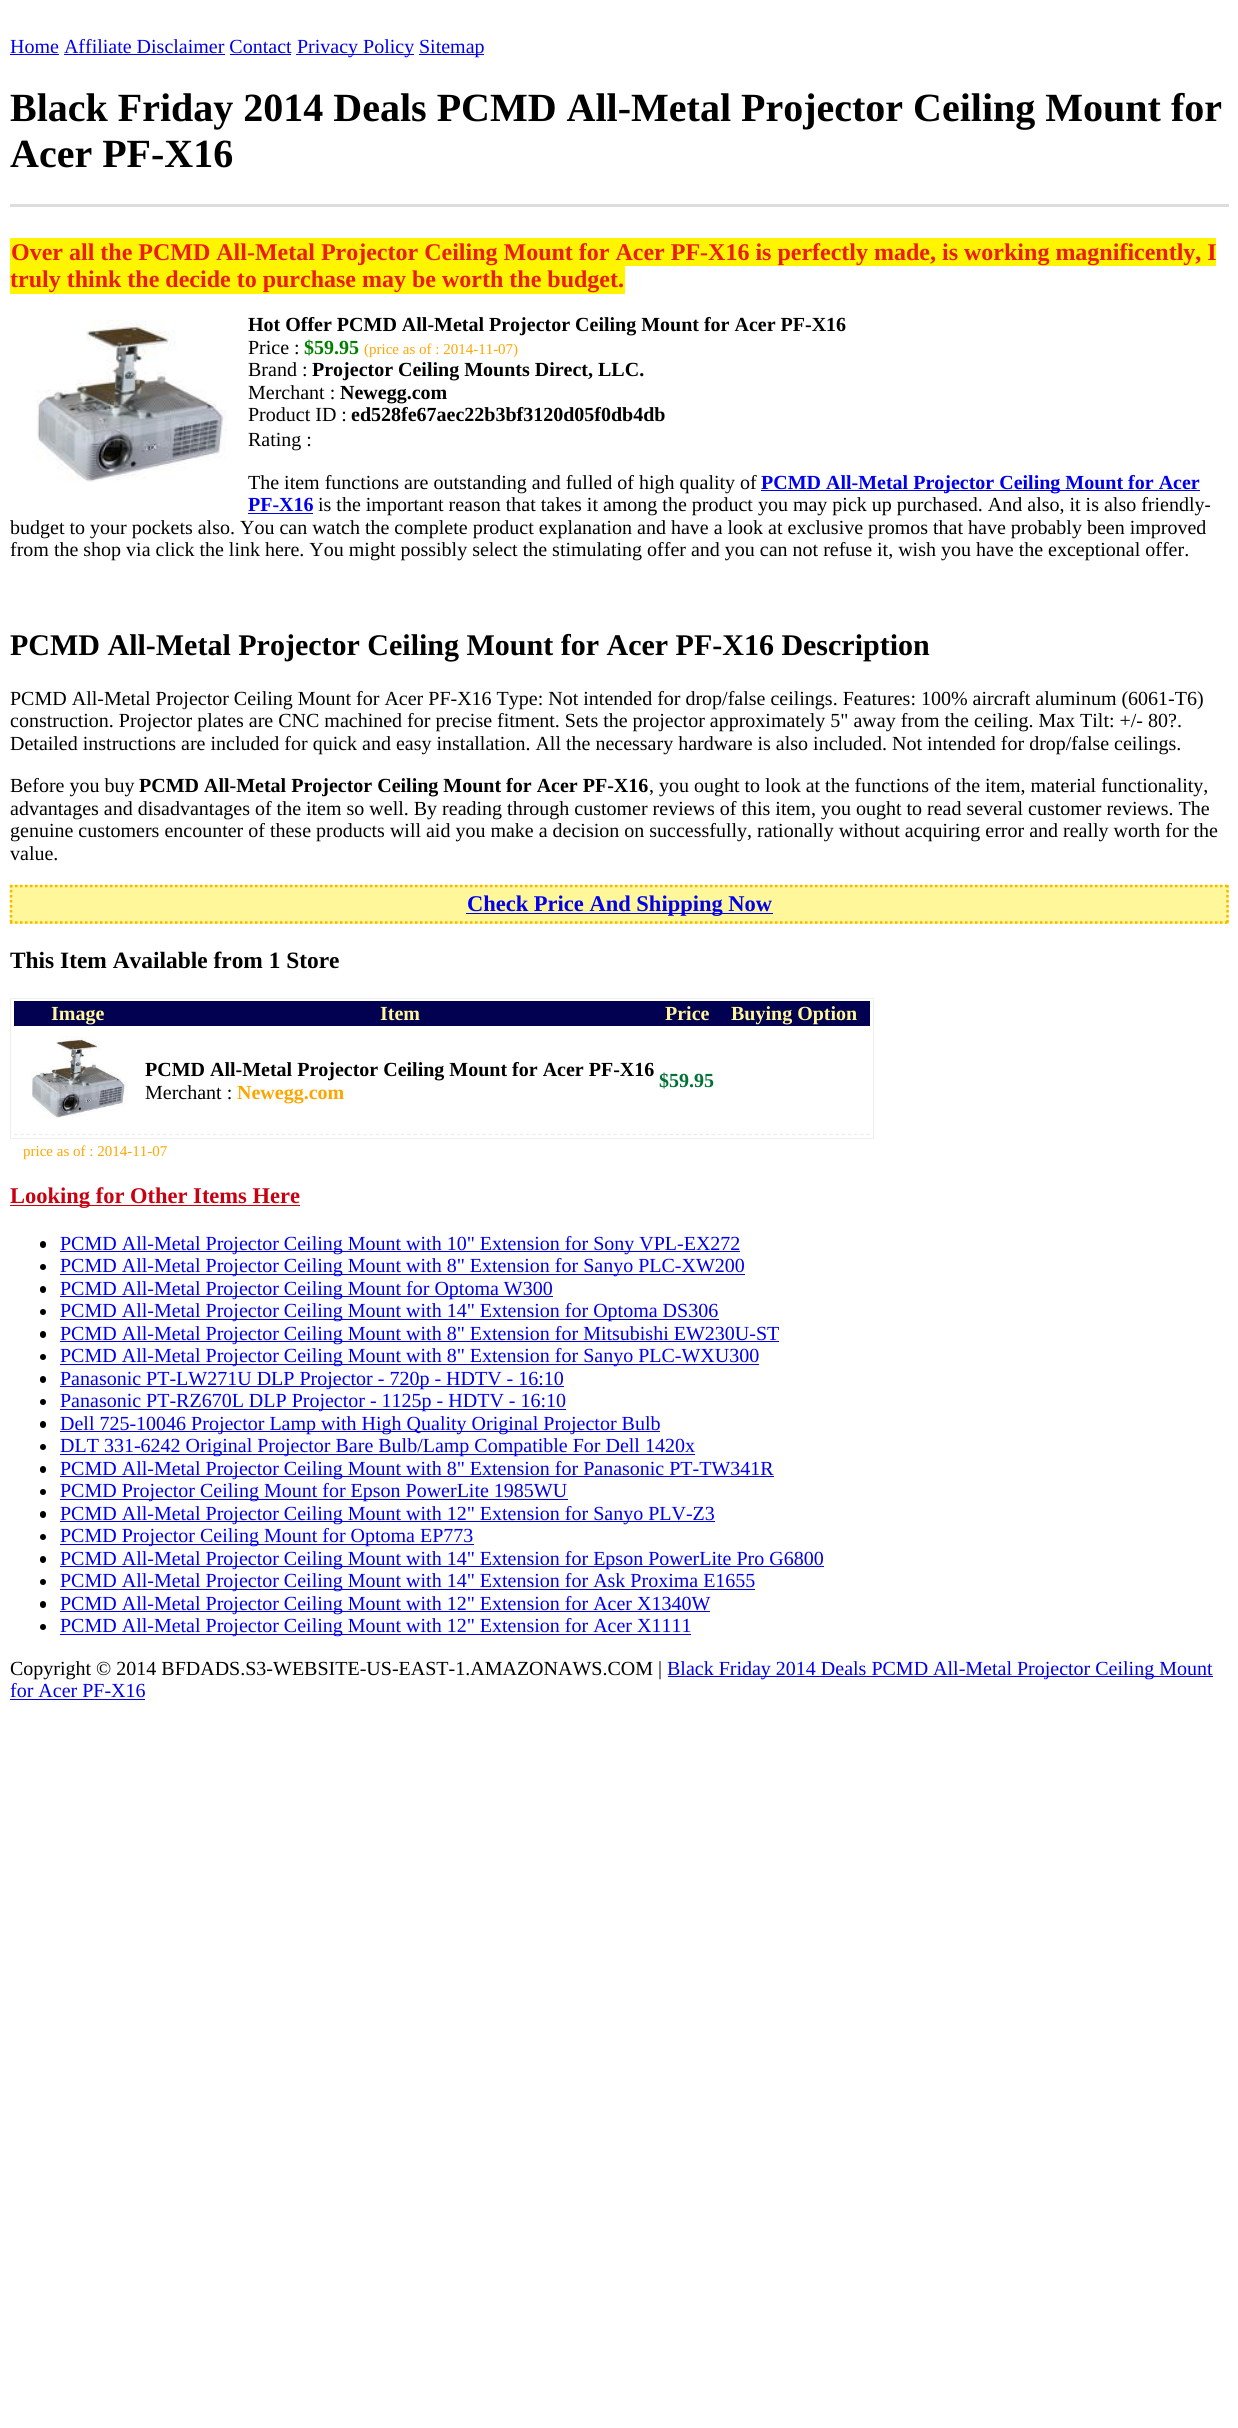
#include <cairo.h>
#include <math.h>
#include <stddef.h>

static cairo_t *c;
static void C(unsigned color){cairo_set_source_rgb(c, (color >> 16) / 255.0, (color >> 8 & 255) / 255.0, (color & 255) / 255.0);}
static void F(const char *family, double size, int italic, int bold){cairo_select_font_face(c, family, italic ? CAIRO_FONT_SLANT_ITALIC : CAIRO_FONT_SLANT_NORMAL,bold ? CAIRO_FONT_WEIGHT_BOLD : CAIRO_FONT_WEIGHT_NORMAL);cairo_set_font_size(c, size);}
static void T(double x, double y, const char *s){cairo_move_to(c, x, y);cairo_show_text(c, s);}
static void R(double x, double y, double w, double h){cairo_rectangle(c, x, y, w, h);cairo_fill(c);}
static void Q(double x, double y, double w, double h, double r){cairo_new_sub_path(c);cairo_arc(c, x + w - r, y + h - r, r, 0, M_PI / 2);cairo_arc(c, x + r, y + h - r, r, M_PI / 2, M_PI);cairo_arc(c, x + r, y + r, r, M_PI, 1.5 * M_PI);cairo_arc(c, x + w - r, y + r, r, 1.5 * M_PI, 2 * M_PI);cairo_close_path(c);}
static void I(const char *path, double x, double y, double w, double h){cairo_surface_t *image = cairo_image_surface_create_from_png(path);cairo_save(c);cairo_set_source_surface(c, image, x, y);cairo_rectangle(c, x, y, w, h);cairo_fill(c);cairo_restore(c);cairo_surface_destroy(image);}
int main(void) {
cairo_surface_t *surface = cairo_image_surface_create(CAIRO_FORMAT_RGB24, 1238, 2428);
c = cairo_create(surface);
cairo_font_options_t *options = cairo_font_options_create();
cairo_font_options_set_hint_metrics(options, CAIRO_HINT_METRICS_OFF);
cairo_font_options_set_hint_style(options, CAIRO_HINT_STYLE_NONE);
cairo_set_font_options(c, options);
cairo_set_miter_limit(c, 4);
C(0xffffff);
cairo_paint(c);
F("Liberation Serif",20,0,0);
C(0x0000ee);
T(10,53,"Home Affiliate Disclaimer Contact");
R(10,54,49,1);
R(296,54,118,1);
T(297,53,"Privacy Policy");
R(419,54,65,1);
T(419,53,"Sitemap");
R(64,54,161,1);
R(230,54,61,1);
F("Liberation Serif",40,0,1);
C(0x000000);
T(10,121,"Black Friday 2014 Deals PCMD All-Metal Projector Ceiling Mount for");
T(10,167,"Acer PF-X16");
C(0xdddddd);
R(10,204,1219,3);
C(0xfff500);
R(10,238,1206,28);
F("Liberation Serif",24,0,1);
C(0xed1c10);
T(11,260,"Over all the PCMD All-Metal Projector Ceiling Mount for Acer PF-X16 is perfectly made, is working magnificently, I");
C(0xfff500);
R(10,266,615,28);
C(0xed1c10);
T(10,287,"truly think the decide to purchase may be worth the budget.");
I("1.png",36,320,191,162);
F("Liberation Serif",20,0,1);
C(0x000000);
T(248,331,"Hot Offer PCMD All-Metal Projector Ceiling Mount for Acer PF-X16");
F("Liberation Serif",20,0,0);
T(248,354,"Price :");
F("Liberation Serif",20,0,1);
C(0x008000);
T(304,354,"$59.95");
F("Liberation Serif",15,0,0);
C(0xffa500);
T(364,354,"(price as of : 2014-11-07)");
F("Liberation Serif",20,0,0);
C(0x000000);
T(248,376,"Brand :");
F("Liberation Serif",20,0,1);
T(312,376,"Projector Ceiling Mounts Direct, LLC.");
F("Liberation Serif",20,0,0);
T(248,399,"Merchant :");
F("Liberation Serif",20,0,1);
T(340,399,"Newegg.com");
F("Liberation Serif",20,0,0);
T(248,421,"Product ID :");
F("Liberation Serif",20,0,1);
T(351,421,"ed528fe67aec22b3bf3120d05f0db4db");
F("Liberation Serif",20,0,0);
T(248,446,"Rating :");
T(248,489,"The item functions are outstanding and fulled of high quality of");
C(0x0000ee);
R(761,490,439,1);
F("Liberation Serif",20,0,1);
T(761,489,"PCMD All-Metal Projector Ceiling Mount for Acer");
T(248,511,"PF-X16");
R(248,513,65,1);
F("Liberation Serif",20,0,0);
C(0x000000);
T(318,511,"is the important reason that takes it among the product you may pick up purchased. And also, it is also friendly-");
T(10,534,"budget to your pockets also. You can watch the complete product explanation and have a look at exclusive promos that have probably been improved");
T(10,556,"from the shop via click the link here. You might possibly select the stimulating offer and you can not refuse it, wish you have the exceptional offer.");
F("Liberation Serif",30,0,1);
T(10,655,"PCMD All-Metal Projector Ceiling Mount for Acer PF-X16 Description");
F("Liberation Serif",20,0,0);
T(10,705,"PCMD All-Metal Projector Ceiling Mount for Acer PF-X16 Type: Not intended for drop/false ceilings. Features: 100% aircraft aluminum (6061-T6)");
T(10,727,"construction. Projector plates are CNC machined for precise fitment. Sets the projector approximately 5\" away from the ceiling. Max Tilt: +/- 80?.");
T(10,750,"Detailed instructions are included for quick and easy installation. All the necessary hardware is also included. Not intended for drop/false ceilings.");
T(10,792,"Before you buy");
F("Liberation Serif",20,0,1);
T(139,792,"PCMD All-Metal Projector Ceiling Mount for Acer PF-X16");
F("Liberation Serif",20,0,0);
T(649,792,", you ought to look at the functions of the item, material functionality,");
T(10,815,"advantages and disadvantages of the item so well. By reading through customer reviews of this item, you ought to read several customer reviews. The");
T(10,837,"genuine customers encounter of these products will aid you make a decision on successfully, rationally without acquiring error and really worth for the");
T(10,860,"value.");
C(0xfff799);
R(10,885,1219,39);
cairo_new_path(c);
cairo_move_to(c,10,886);
cairo_line_to(c,1229,886);
C(0xf6b900);
cairo_set_line_width(c,2.5);
cairo_set_dash(c,(double[]){2.5,2.5},2,0);
cairo_stroke(c);
cairo_new_path(c);
cairo_move_to(c,1227.5,885);
cairo_line_to(c,1227.5,924);
cairo_stroke(c);
cairo_new_path(c);
cairo_move_to(c,10,922.5);
cairo_line_to(c,1229,922.5);
cairo_stroke(c);
cairo_new_path(c);
cairo_move_to(c,11,885);
cairo_line_to(c,11,924);
cairo_stroke(c);
C(0x0000ee);
R(466,913,307,1);
F("Liberation Serif",22.5,0,1);
T(467,911,"Check Price And Shipping Now");
F("Liberation Serif",23.4,0,1);
C(0x000000);
T(10,968,"This Item Available from 1 Store");
cairo_rectangle(c,10.5,998.5,863,140);
C(0xeeeeee);
cairo_set_line_width(c,1);
cairo_set_dash(c,NULL,0,0);
cairo_stroke(c);
C(0x020050);
R(14,1001,856,25);
F("Liberation Serif",20,0,1);
C(0xfff799);
T(51,1020,"Image");
T(380,1020,"Item");
T(665,1020,"Price");
T(731,1020,"Buying Option");
cairo_new_path(c);
cairo_move_to(c,14,1134.5);
cairo_line_to(c,141,1134.5);
C(0xeeeeee);
cairo_set_line_width(c,1.2);
cairo_set_dash(c,(double[]){3.75,2.44},2,0);
cairo_stroke(c);
I("2.png",31,1036,96,82);
cairo_new_path(c);
cairo_move_to(c,144,1134.5);
cairo_line_to(c,655,1134.5);
cairo_set_dash(c,(double[]){3.75,2.51},2,0);
cairo_stroke(c);
C(0x000000);
T(145,1076,"PCMD All-Metal Projector Ceiling Mount for Acer PF-X16");
F("Liberation Serif",20,0,0);
T(145,1099,"Merchant :");
F("Liberation Serif",20,0,1);
C(0xffa500);
T(237,1099,"Newegg.com");
cairo_new_path(c);
cairo_move_to(c,657.5,1134.5);
cairo_line_to(c,715,1134.5);
C(0xebebeb);
cairo_set_dash(c,(double[]){3.75,2.23},2,0);
cairo_stroke(c);
C(0x007236);
T(659,1087,"$59.95");
cairo_new_path(c);
cairo_move_to(c,717.5,1134.5);
cairo_line_to(c,870,1134.5);
C(0xeeeeee);
cairo_set_dash(c,(double[]){3.75,2.45},2,0);
cairo_stroke(c);
F("Liberation Serif",15,0,0);
C(0xffa500);
T(23,1156,"price as of : 2014-11-07");
C(0xc80010);
R(10,1205,290,1);
F("Liberation Serif",22.5,0,1);
T(10,1203,"Looking for Other Items Here");
C(0x000000);
Q(40,1241,6,7,3);
cairo_fill(c);
C(0x0000ee);
R(60,1251,680,1);
F("Liberation Serif",20,0,0);
T(60,1250,"PCMD All-Metal Projector Ceiling Mount with 10\" Extension for Sony VPL-EX272");
C(0x000000);
cairo_new_path(c);
cairo_arc(c,43,1267,3,0,2 * M_PI);
cairo_fill(c);
C(0x0000ee);
R(60,1274,685,1);
T(60,1272,"PCMD All-Metal Projector Ceiling Mount with 8\" Extension for Sanyo PLC-XW200");
C(0x000000);
Q(40,1286,6,7,3);
cairo_fill(c);
C(0x0000ee);
R(60,1296,493,1);
T(60,1295,"PCMD All-Metal Projector Ceiling Mount for Optoma W300");
C(0x000000);
cairo_new_path(c);
cairo_arc(c,43,1312,3,0,2 * M_PI);
cairo_fill(c);
C(0x0000ee);
R(60,1319,659,1);
T(60,1317,"PCMD All-Metal Projector Ceiling Mount with 14\" Extension for Optoma DS306");
C(0x000000);
Q(40,1331,6,7,3);
cairo_fill(c);
C(0x0000ee);
R(60,1341,719,1);
T(60,1340,"PCMD All-Metal Projector Ceiling Mount with 8\" Extension for Mitsubishi EW230U-ST");
C(0x000000);
cairo_new_path(c);
cairo_arc(c,43,1357,3,0,2 * M_PI);
cairo_fill(c);
C(0x0000ee);
R(60,1364,699,1);
T(60,1362,"PCMD All-Metal Projector Ceiling Mount with 8\" Extension for Sanyo PLC-WXU300");
C(0x000000);
Q(40,1376,6,7,3);
cairo_fill(c);
C(0x0000ee);
R(60,1386,504,1);
T(60,1385,"Panasonic PT-LW271U DLP Projector - 720p - HDTV - 16:10");
C(0x000000);
cairo_new_path(c);
cairo_arc(c,43,1402,3,0,2 * M_PI);
cairo_fill(c);
C(0x0000ee);
R(60,1409,506,1);
T(60,1407,"Panasonic PT-RZ670L DLP Projector - 1125p - HDTV - 16:10");
C(0x000000);
Q(40,1421,6,7,3);
cairo_fill(c);
C(0x0000ee);
R(60,1431,600,1);
T(60,1430,"Dell 725-10046 Projector Lamp with High Quality Original Projector Bulb");
C(0x000000);
cairo_new_path(c);
cairo_arc(c,43,1447,3,0,2 * M_PI);
cairo_fill(c);
C(0x0000ee);
R(60,1454,635,1);
T(60,1452,"DLT 331-6242 Original Projector Bare Bulb/Lamp Compatible For Dell 1420x");
C(0x000000);
Q(40,1466,6,7,3);
cairo_fill(c);
C(0x0000ee);
R(60,1476,714,1);
T(60,1475,"PCMD All-Metal Projector Ceiling Mount with 8\" Extension for Panasonic PT-TW341R");
C(0x000000);
cairo_new_path(c);
cairo_arc(c,43,1492,3,0,2 * M_PI);
cairo_fill(c);
C(0x0000ee);
R(60,1499,508,1);
T(60,1497,"PCMD Projector Ceiling Mount for Epson PowerLite 1985WU");
C(0x000000);
Q(40,1511,6,7,3);
cairo_fill(c);
C(0x0000ee);
R(60,1521,655,1);
T(60,1520,"PCMD All-Metal Projector Ceiling Mount with 12\" Extension for Sanyo PLV-Z3");
C(0x000000);
cairo_new_path(c);
cairo_arc(c,43,1537,3,0,2 * M_PI);
cairo_fill(c);
C(0x0000ee);
R(60,1544,414,1);
T(60,1542,"PCMD Projector Ceiling Mount for Optoma EP773");
C(0x000000);
Q(40,1556,6,7,3);
cairo_fill(c);
C(0x0000ee);
R(60,1566,764,1);
T(60,1565,"PCMD All-Metal Projector Ceiling Mount with 14\" Extension for Epson PowerLite Pro G6800");
C(0x000000);
cairo_new_path(c);
cairo_arc(c,43,1582,3,0,2 * M_PI);
cairo_fill(c);
C(0x0000ee);
R(60,1589,695,1);
T(60,1587,"PCMD All-Metal Projector Ceiling Mount with 14\" Extension for Ask Proxima E1655");
C(0x000000);
Q(40,1601,6,7,3);
cairo_fill(c);
C(0x0000ee);
R(60,1611,650,1);
T(60,1610,"PCMD All-Metal Projector Ceiling Mount with 12\" Extension for Acer X1340W");
C(0x000000);
cairo_new_path(c);
cairo_arc(c,43,1627,3,0,2 * M_PI);
cairo_fill(c);
C(0x0000ee);
R(60,1634,631,1);
T(60,1632,"PCMD All-Metal Projector Ceiling Mount with 12\" Extension for Acer X1111");
C(0x000000);
T(10,1675,"Copyright © 2014 BFDADS.S3-WEBSITE-US-EAST-1.AMAZONAWS.COM |");
C(0x0000ee);
R(668,1676,545,1);
T(667,1675,"Black Friday 2014 Deals PCMD All-Metal Projector Ceiling Mount");
T(10,1697,"for Acer PF-X16");
R(10,1699,135,1);
cairo_surface_write_to_png(surface, "o.png");
cairo_font_options_destroy(options);
cairo_destroy(c);
cairo_surface_destroy(surface);
return 0;
}
